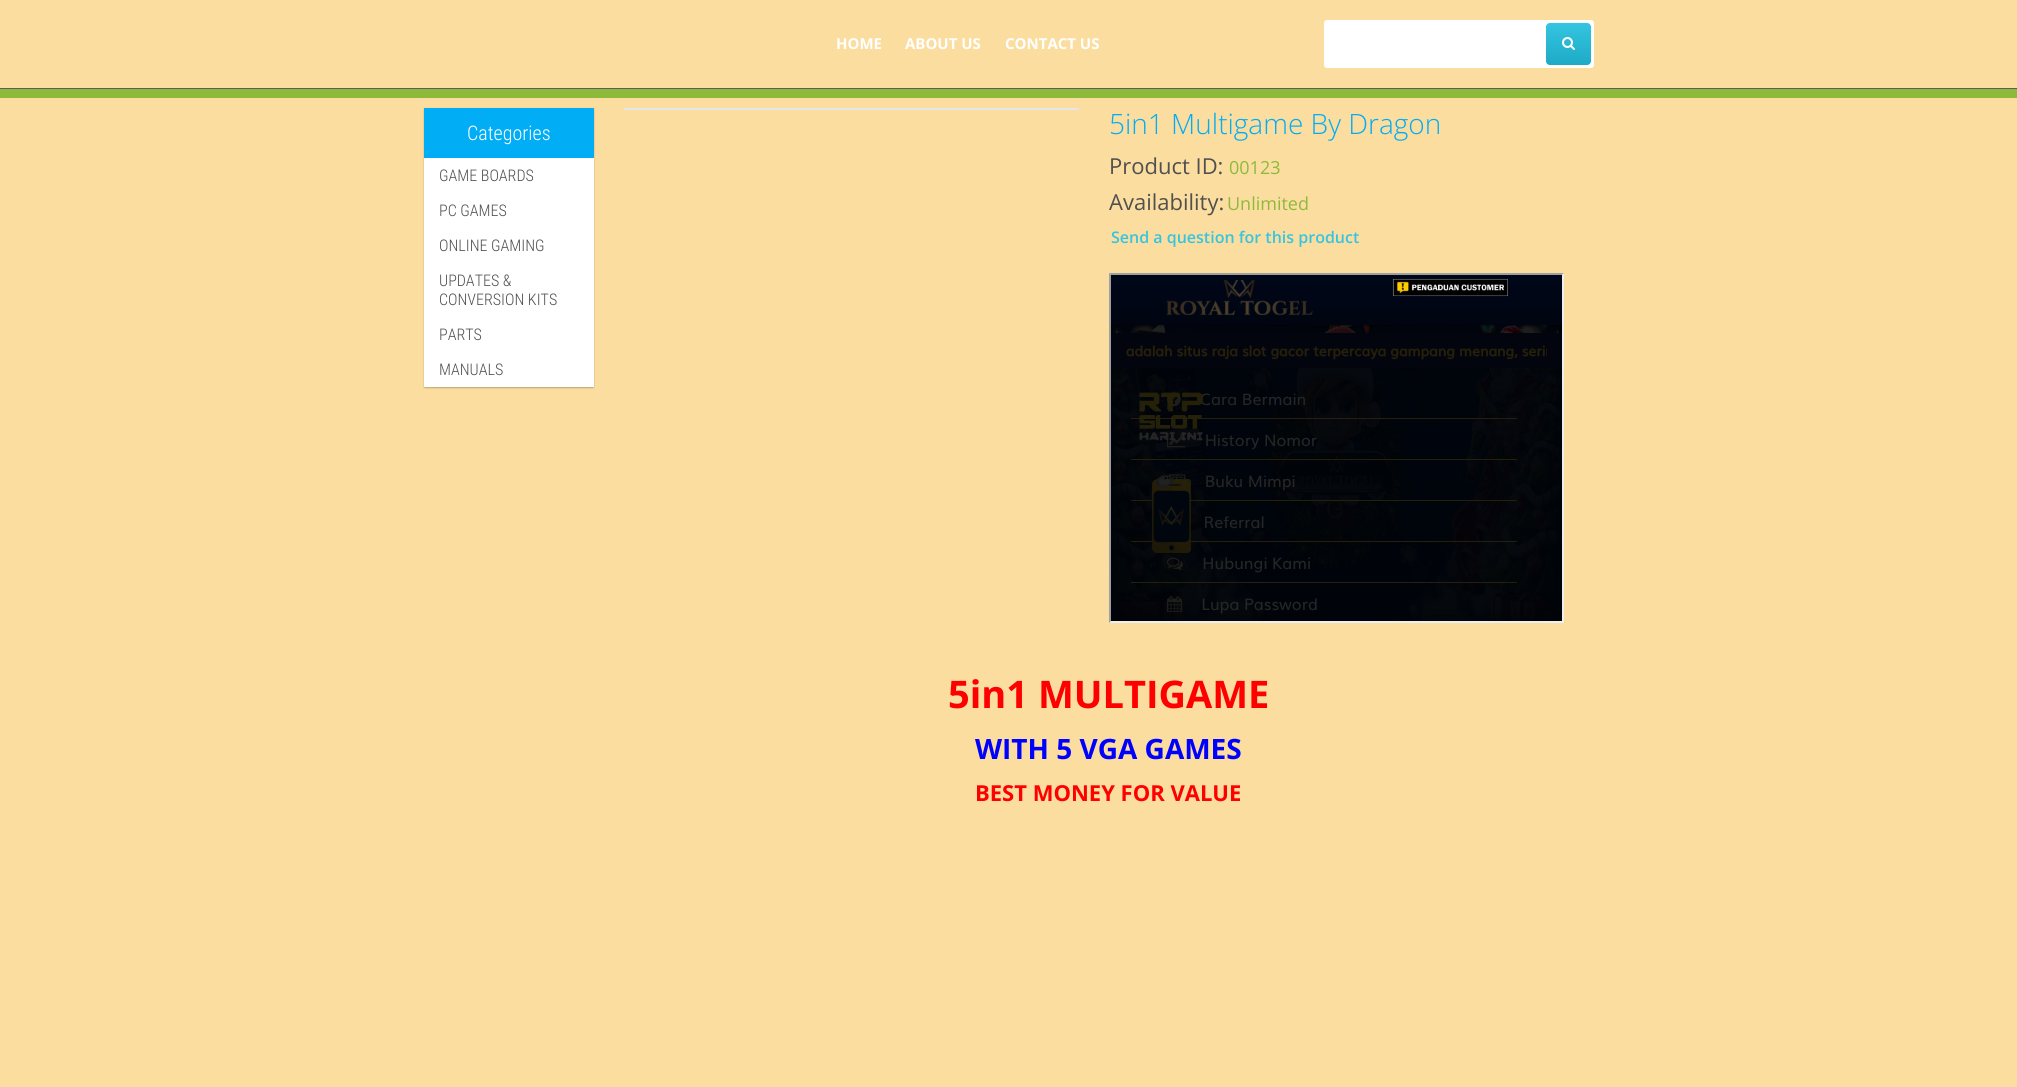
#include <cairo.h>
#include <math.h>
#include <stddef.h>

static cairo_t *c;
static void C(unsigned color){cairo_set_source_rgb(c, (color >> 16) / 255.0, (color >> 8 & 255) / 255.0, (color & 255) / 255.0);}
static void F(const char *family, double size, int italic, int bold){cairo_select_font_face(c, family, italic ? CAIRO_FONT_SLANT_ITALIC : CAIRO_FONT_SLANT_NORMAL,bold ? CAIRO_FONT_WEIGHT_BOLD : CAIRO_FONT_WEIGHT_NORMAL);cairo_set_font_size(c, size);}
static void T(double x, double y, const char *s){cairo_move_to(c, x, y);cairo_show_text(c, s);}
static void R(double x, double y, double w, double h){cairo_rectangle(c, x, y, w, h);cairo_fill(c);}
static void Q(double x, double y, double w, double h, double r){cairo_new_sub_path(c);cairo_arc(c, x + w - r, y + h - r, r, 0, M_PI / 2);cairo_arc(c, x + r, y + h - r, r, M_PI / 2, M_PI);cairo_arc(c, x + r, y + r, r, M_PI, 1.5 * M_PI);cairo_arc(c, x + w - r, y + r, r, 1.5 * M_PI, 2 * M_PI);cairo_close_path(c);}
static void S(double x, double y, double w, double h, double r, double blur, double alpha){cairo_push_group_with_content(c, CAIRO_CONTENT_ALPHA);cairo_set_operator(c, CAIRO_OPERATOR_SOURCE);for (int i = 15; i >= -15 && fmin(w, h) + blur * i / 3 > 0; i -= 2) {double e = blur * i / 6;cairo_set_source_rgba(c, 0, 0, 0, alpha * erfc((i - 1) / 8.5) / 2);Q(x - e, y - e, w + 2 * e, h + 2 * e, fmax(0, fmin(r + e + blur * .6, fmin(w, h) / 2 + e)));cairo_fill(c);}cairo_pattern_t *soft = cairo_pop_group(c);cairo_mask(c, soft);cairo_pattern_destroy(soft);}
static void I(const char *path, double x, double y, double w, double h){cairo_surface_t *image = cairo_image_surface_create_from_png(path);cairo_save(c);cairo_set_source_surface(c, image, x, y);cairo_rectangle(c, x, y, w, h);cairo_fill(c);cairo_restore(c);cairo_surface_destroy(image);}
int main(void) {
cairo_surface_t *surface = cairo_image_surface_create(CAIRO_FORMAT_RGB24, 2017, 1087);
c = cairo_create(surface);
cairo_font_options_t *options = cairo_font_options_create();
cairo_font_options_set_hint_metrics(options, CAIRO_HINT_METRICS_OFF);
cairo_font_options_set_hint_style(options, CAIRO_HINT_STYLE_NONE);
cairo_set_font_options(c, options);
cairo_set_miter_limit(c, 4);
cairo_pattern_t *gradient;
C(0xfbdd9f);
cairo_paint(c);
C(0x5d5d5d);
R(0,88,2017,1);
F("Open Sans",15,0,1);
C(0xffffff);
T(836,49,"HOME");
T(905,49,"ABOUT US");
T(1005,49,"CONTACT US");
Q(1324,20,270,48,3);
cairo_fill(c);
gradient = cairo_pattern_create_linear(1569,23,1569,65);
cairo_pattern_add_color_stop_rgba(gradient,0,0.208,0.773,0.882,1);
cairo_pattern_add_color_stop_rgba(gradient,1,0.114,0.667,0.776,1);
cairo_set_source(c,gradient);
cairo_pattern_destroy(gradient);
Q(1546,23,45,42,4);
cairo_fill(c);
I("1.png",1562,37,13,13);
C(0x8dba3b);
R(0,89,2017,9);
C(0x000000);
S(424,109,170,279,0,1,.1);
S(425,110,168,277,0,1,.4);
C(0x01adf5);
R(424,108,170,50);
F("Roboto Condensed Light",20,0,0);
C(0xffffff);
T(467,140,"Categories");
R(424,158,170,229);
F("Roboto Condensed Light",16,0,0);
C(0x505050);
T(439,181,"GAME BOARDS");
T(439,216,"PC GAMES");
T(439,251,"ONLINE GAMING");
T(439,286,"UPDATES &");
T(439,305,"CONVERSION KITS");
T(439,340,"PARTS");
T(439,375,"MANUALS");
C(0xe6e6e6);
R(624,108,455,2);
F("Open Sans Light",28,0,0);
C(0x01adf5);
T(1109,134,"5in1 Multigame By Dragon");
F("Open Sans",22,0,0);
C(0x505050);
T(1109,174,"Product ID:");
F("Open Sans",18,0,0);
C(0x8dba3b);
T(1229,174,"00123");
F("Open Sans",22,0,0);
C(0x505050);
T(1109,210,"Availability:");
F("Open Sans",18,0,0);
C(0x8dba3b);
T(1227,210,"Unlimited");
F("Open Sans SemiBold",16,0,0);
C(0x35c5e1);
T(1111,243,"Send a question for this product");
C(0x9f9f9f);
cairo_new_path(c);
cairo_move_to(c,1109,273);
cairo_line_to(c,1564,273);
cairo_line_to(c,1562,275);
cairo_line_to(c,1111,275);
cairo_close_path(c);
cairo_fill(c);
C(0xeeeeee);
cairo_new_path(c);
cairo_move_to(c,1564,273);
cairo_line_to(c,1564,623);
cairo_line_to(c,1562,621);
cairo_line_to(c,1562,275);
cairo_close_path(c);
cairo_fill(c);
cairo_new_path(c);
cairo_move_to(c,1564,623);
cairo_line_to(c,1109,623);
cairo_line_to(c,1111,621);
cairo_line_to(c,1562,621);
cairo_close_path(c);
cairo_fill(c);
C(0x9f9f9f);
cairo_new_path(c);
cairo_move_to(c,1109,623);
cairo_line_to(c,1109,273);
cairo_line_to(c,1111,275);
cairo_line_to(c,1111,621);
cairo_close_path(c);
cairo_fill(c);
I("2.png",1111,275,451,346);
F("Open Sans",38,0,1);
C(0xff0000);
T(948,708,"5in1 MULTIGAME");
F("Open Sans",28,0,1);
C(0x0000ff);
T(975,759,"WITH 5 VGA GAMES");
F("Open Sans",22,0,1);
C(0xff0000);
T(975,801,"BEST MONEY FOR VALUE");
cairo_surface_write_to_png(surface, "o.png");
cairo_font_options_destroy(options);
cairo_destroy(c);
cairo_surface_destroy(surface);
return 0;
}
